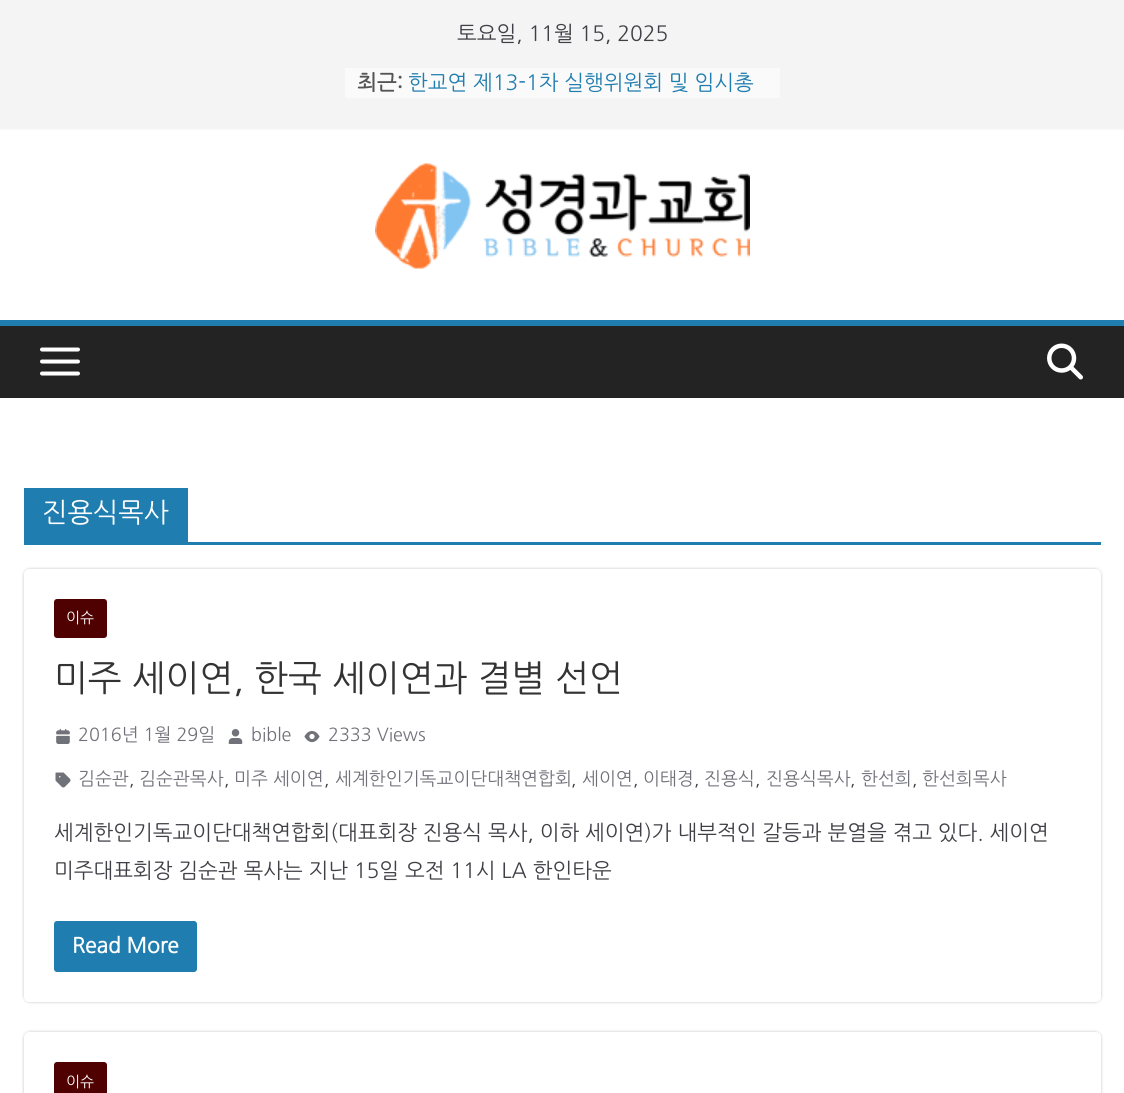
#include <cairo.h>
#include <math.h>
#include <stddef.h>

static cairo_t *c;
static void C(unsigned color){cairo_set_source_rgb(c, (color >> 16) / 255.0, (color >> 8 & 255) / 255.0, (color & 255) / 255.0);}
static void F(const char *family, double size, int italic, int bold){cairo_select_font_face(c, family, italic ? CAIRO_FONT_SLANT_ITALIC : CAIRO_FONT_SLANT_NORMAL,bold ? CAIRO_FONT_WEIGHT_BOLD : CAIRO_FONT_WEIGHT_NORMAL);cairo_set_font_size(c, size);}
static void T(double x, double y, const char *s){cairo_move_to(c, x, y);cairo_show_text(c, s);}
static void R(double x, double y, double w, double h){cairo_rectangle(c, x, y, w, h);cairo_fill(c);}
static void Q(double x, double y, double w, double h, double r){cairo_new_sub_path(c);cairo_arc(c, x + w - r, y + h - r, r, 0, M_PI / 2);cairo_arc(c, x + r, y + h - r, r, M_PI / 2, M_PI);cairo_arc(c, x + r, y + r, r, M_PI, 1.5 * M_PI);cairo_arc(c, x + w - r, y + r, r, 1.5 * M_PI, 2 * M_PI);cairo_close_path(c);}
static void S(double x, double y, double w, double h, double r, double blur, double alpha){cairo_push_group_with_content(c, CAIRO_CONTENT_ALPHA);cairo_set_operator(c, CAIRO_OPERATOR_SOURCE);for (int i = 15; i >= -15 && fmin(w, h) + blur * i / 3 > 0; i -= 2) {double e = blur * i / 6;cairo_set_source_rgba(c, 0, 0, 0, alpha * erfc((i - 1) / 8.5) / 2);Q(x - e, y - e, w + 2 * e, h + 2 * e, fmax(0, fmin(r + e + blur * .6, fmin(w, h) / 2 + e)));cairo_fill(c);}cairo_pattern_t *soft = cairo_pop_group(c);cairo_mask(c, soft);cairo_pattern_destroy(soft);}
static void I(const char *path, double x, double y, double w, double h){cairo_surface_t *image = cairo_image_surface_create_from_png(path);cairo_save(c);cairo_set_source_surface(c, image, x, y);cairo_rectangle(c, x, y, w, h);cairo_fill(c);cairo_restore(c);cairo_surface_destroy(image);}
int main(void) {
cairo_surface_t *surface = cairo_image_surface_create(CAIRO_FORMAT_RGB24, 1124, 1093);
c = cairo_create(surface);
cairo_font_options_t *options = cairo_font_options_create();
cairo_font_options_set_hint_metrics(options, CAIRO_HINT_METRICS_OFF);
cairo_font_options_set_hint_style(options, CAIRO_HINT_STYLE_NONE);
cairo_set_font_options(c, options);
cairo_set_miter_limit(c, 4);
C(0xffffff);
cairo_paint(c);
C(0x000000);
S(0,0,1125,128,0,1.5,.1);
C(0xf4f4f5);
R(0,0,1124,128);
F("NanumGothic",21,0,0);
C(0x3f3f46);
T(457,41,"토요일, 11월 15, 2025");
C(0xfafafa);
R(345,68,435,30);
F("NanumGothic",21,0,1);
C(0x555555);
T(357,90,"최근:");
F("NanumGothic",21,0,0);
C(0x207daf);
T(408,90,"한교연 제13-1차 실행위원회 및 임시총");
I("1.png",375,163,375,106);
C(0x232323);
R(0,326,1124,72);
C(0x207daf);
R(0,320,1124,6);
I("2.png",40,347,40,29);
I("3.png",1047,343,36,37);
R(24,542,1077,3);
R(24,488,164,54);
F("NanumGothic",27,0,0);
C(0xffffff);
T(42,522,"진용식목사");
cairo_save(c);
cairo_set_fill_rule(c,CAIRO_FILL_RULE_EVEN_ODD);
cairo_new_path(c);
cairo_move_to(c,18,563);
cairo_line_to(c,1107,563);
cairo_line_to(c,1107,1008);
cairo_line_to(c,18,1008);
cairo_close_path(c);
cairo_move_to(c,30,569);
cairo_line_to(c,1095,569);
cairo_curve_to(c,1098.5,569,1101,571.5,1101,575);
cairo_line_to(c,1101,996);
cairo_curve_to(c,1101,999.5,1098.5,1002,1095,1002);
cairo_line_to(c,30,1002);
cairo_curve_to(c,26.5,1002,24,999.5,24,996);
cairo_line_to(c,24,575);
cairo_curve_to(c,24,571.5,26.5,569,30,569);
cairo_close_path(c);
cairo_clip(c);
C(0x000000);
S(24,569,1077,433,6,1.5,.24);
cairo_restore(c);
C(0x4f0000);
Q(54,599,53,39,3);
cairo_fill(c);
F("NanumGothic",15,0,0);
C(0xffffff);
T(66,623,"이슈");
F("NanumGothic",36,0,0);
C(0x333333);
T(54,691,"미주 세이연, 한국 세이연과 결별 선언");
I("4.png",56,729,14,15);
F("NanumGothic",18,0,0);
C(0x71717a);
T(78,741,"2016년 1월 29일");
I("5.png",228,729,15,15);
T(251,741,"bible");
I("6.png",304,731,16,12);
T(328,741,"2333 Views");
I("7.png",55,772,16,16);
T(78,785,"김순관");
C(0x3f3f46);
T(129,785,",");
C(0x71717a);
T(139,785,"김순관목사");
C(0x3f3f46);
T(224,785,",");
C(0x71717a);
T(234,785,"미주 세이연");
C(0x3f3f46);
T(324,785,",");
C(0x71717a);
T(335,785,"세계한인기독교이단대책연합회");
C(0x3f3f46);
T(571,785,",");
C(0x71717a);
T(582,785,"세이연");
C(0x3f3f46);
T(633,785,",");
C(0x71717a);
T(643,785,"이태경");
C(0x3f3f46);
T(694,785,",");
C(0x71717a);
T(704,785,"진용식");
C(0x3f3f46);
T(755,785,",");
C(0x71717a);
T(766,785,"진용식목사");
C(0x3f3f46);
T(850,785,",");
C(0x71717a);
T(861,785,"한선희");
C(0x3f3f46);
T(912,785,",");
C(0x71717a);
T(922,785,"한선희목사");
F("NanumGothic",21,0,0);
C(0x3f3f46);
T(54,840,"세계한인기독교이단대책연합회(대표회장 진용식 목사, 이하 세이연)가 내부적인 갈등과 분열을 겪고 있다. 세이연");
T(54,878,"미주대표회장 김순관 목사는 지난 15일 오전 11시 LA 한인타운");
C(0x207daf);
Q(54,921,143,51,3);
cairo_fill(c);
F("NanumGothic",21,0,1);
C(0xffffff);
T(72,953,"Read More");
cairo_save(c);
cairo_set_fill_rule(c,CAIRO_FILL_RULE_EVEN_ODD);
cairo_new_path(c);
cairo_move_to(c,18,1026);
cairo_line_to(c,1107,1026);
cairo_line_to(c,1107,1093);
cairo_line_to(c,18,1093);
cairo_close_path(c);
cairo_move_to(c,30,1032);
cairo_line_to(c,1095,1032);
cairo_curve_to(c,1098.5,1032,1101,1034.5,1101,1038);
cairo_line_to(c,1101,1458);
cairo_curve_to(c,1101,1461.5,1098.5,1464,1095,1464);
cairo_line_to(c,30,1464);
cairo_curve_to(c,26.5,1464,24,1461.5,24,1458);
cairo_line_to(c,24,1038);
cairo_curve_to(c,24,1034.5,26.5,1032,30,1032);
cairo_close_path(c);
cairo_clip(c);
C(0x000000);
S(24,1032,1077,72,6,1.5,.24);
cairo_restore(c);
C(0x4f0000);
Q(54,1062,53,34,3);
cairo_fill(c);
F("NanumGothic",15,0,0);
C(0xffffff);
T(66,1087,"이슈");
cairo_surface_write_to_png(surface, "o.png");
cairo_font_options_destroy(options);
cairo_destroy(c);
cairo_surface_destroy(surface);
return 0;
}
